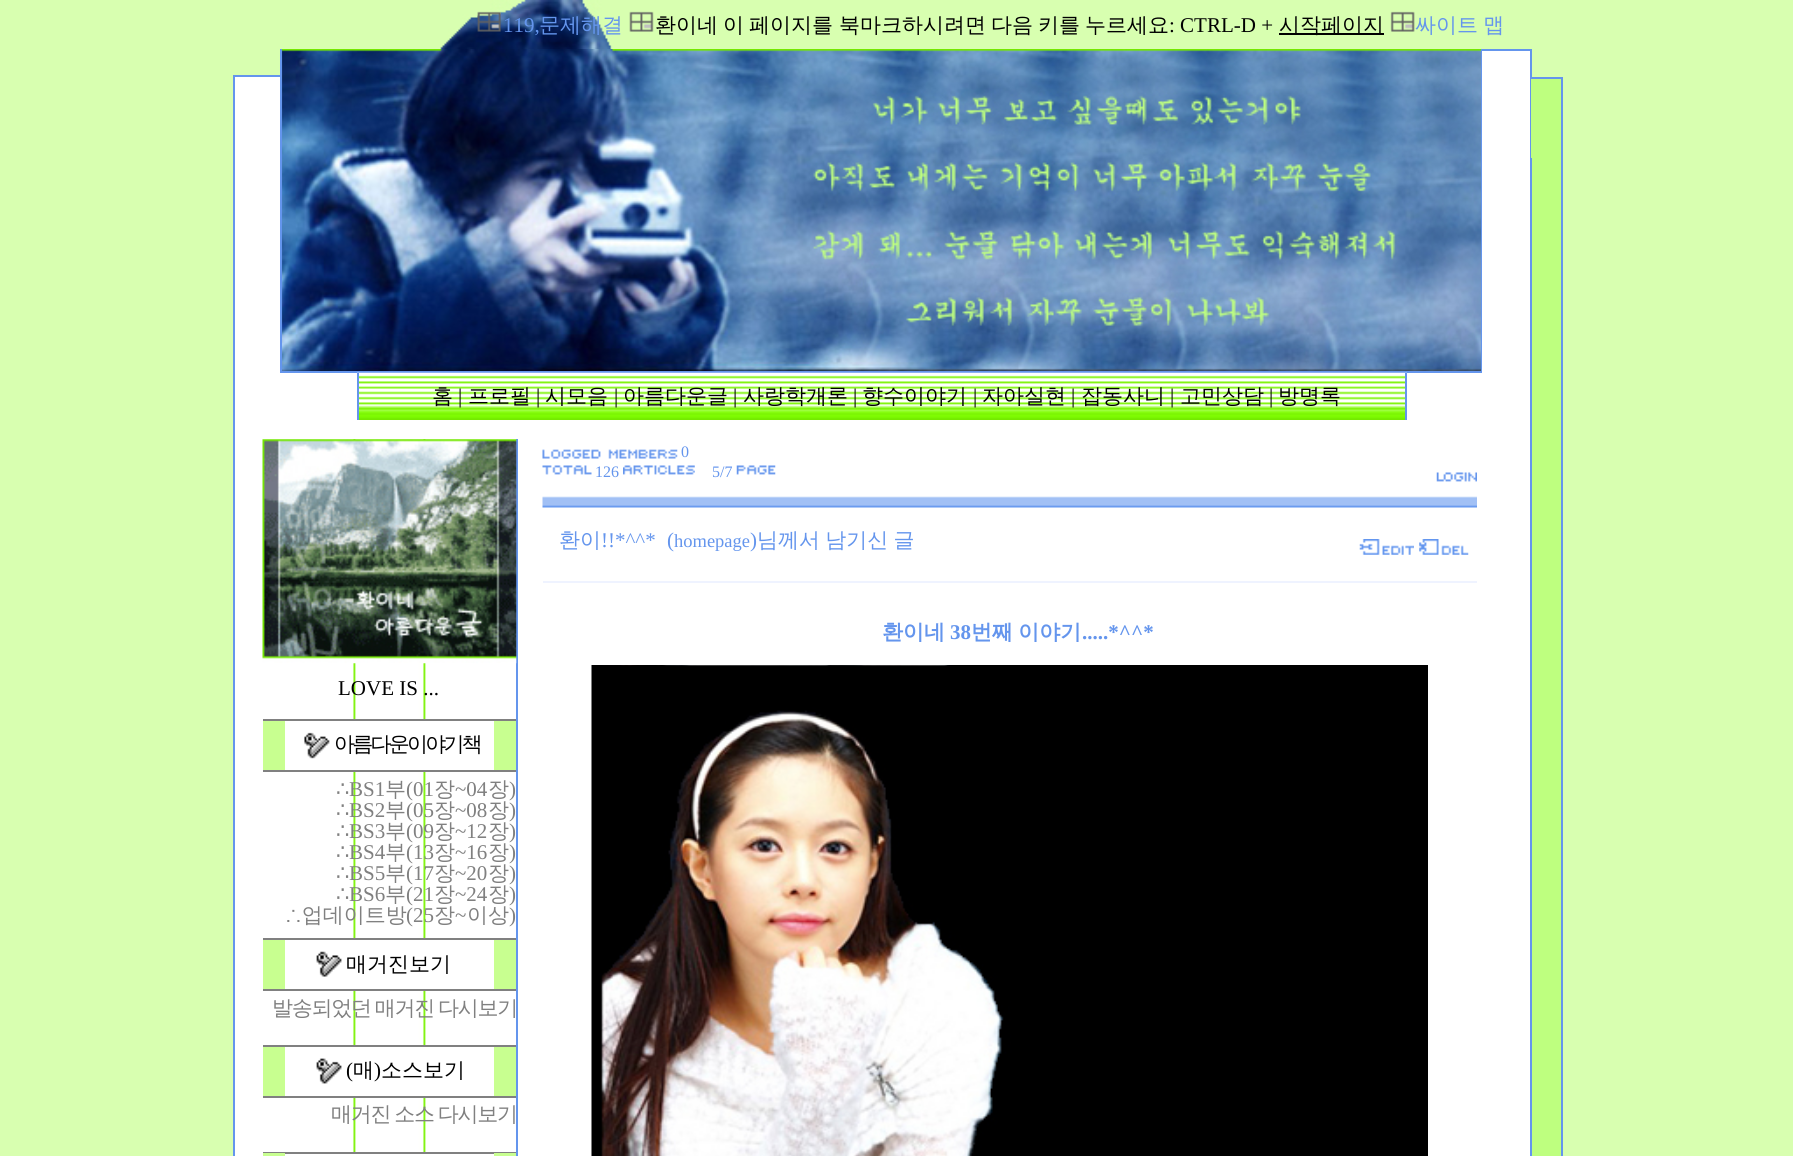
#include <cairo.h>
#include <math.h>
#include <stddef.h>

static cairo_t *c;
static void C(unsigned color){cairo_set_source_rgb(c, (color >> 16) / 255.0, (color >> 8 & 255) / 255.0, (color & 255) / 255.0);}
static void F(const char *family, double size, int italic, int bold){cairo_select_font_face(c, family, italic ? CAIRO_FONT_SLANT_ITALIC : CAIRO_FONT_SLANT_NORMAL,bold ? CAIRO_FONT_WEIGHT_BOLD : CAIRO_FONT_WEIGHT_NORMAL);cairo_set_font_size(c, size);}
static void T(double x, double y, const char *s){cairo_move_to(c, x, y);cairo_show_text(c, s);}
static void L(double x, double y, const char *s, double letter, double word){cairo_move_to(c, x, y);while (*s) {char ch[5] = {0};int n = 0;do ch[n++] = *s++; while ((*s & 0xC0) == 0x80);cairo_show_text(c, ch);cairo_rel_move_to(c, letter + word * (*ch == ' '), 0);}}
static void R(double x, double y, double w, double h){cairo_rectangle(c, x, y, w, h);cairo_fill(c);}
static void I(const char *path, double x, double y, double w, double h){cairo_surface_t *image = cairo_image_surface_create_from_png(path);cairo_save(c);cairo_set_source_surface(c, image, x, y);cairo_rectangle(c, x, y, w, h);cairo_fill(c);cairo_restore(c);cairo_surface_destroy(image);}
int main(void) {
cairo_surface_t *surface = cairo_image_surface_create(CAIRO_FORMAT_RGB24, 1793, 1156);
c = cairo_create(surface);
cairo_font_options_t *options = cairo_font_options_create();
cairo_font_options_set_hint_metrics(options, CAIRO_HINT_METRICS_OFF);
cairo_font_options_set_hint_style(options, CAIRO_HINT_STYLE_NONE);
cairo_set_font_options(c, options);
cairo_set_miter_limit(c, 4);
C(0xd8ffb0);
cairo_paint(c);
I("1.png",440,0,172,49);
I("2.png",477,11,24,21);
F("Liberation Serif",21,0,0);
C(0x6495ed);
T(503,32,"119,");
F("WenQuanYi Zen Hei Medium",21,0,0);
T(539,32,"문제해결");
I("3.png",629,11,25,21);
C(0x000000);
T(655,32,"환이네");
T(723,32,"이");
T(749,32,"페이지를");
T(839,32,"북마크하시려면");
T(991,32,"다음");
T(1038,32,"키를");
T(1085,32,"누르세요");
F("Liberation Serif",21,0,0);
T(1169,32,": CTRL-D +");
R(1279,33,105,2);
F("WenQuanYi Zen Hei Medium",21,0,0);
T(1279,32,"시작페이지");
I("4.png",1390,11,25,21);
C(0x6495ed);
L(1415,32,"싸이트 맵",0,-1);
R(233,75,47,2);
I("5.png",282,49,1199,322);
R(1481,49,1,324);
R(280,371,1202,2);
R(280,49,2,324);
C(0xffffff);
R(1482,51,48,322);
C(0x6495ed);
R(1482,49,49,2);
R(1530,49,2,28);
C(0xffffff);
R(235,77,45,343);
C(0x6495ed);
R(233,77,2,1079);
R(1530,77,1,81);
C(0xbeff7f);
R(1531,79,30,1077);
C(0x6495ed);
R(1531,77,32,2);
R(1561,77,2,1079);
C(0xffffff);
R(280,373,1250,47);
I("6.png",357,372,1050,48);
C(0x6495ed);
R(1405,373,2,47);
R(357,373,2,47);
C(0x000000);
T(432,403,"홈");
F("Liberation Serif",21,0,0);
T(458,403,"|");
F("WenQuanYi Zen Hei Medium",21,0,0);
T(468,403,"프로필");
F("Liberation Serif",21,0,0);
T(536,403,"|");
F("WenQuanYi Zen Hei Medium",21,0,0);
T(545,403,"시모음");
F("Liberation Serif",21,0,0);
T(614,403,"|");
F("WenQuanYi Zen Hei Medium",21,0,0);
T(623,403,"아름다운글");
F("Liberation Serif",21,0,0);
T(733,403,"|");
F("WenQuanYi Zen Hei Medium",21,0,0);
T(743,403,"사랑학개론");
F("Liberation Serif",21,0,0);
T(853,403,"|");
F("WenQuanYi Zen Hei Medium",21,0,0);
T(862,403,"향수이야기");
F("Liberation Serif",21,0,0);
T(973,403,"|");
F("WenQuanYi Zen Hei Medium",21,0,0);
T(982,403,"자아실현");
F("Liberation Serif",21,0,0);
T(1071,403,"|");
F("WenQuanYi Zen Hei Medium",21,0,0);
T(1081,403,"잡동사니");
F("Liberation Serif",21,0,0);
T(1170,403,"|");
F("WenQuanYi Zen Hei Medium",21,0,0);
T(1180,403,"고민상담");
F("Liberation Serif",21,0,0);
T(1269,403,"|");
F("WenQuanYi Zen Hei Medium",21,0,0);
T(1278,403,"방명록");
C(0x6495ed);
R(1530,158,2,998);
C(0xffffff);
R(235,420,1295,736);
I("7.png",542,449,136,10);
F("Liberation Serif",16,0,0);
C(0x6495ed);
T(681,457,"0");
I("8.png",1436,472,41,10);
I("9.png",542,465,50,10);
T(595,477,"126");
I("10.png",623,465,72,10);
T(712,477,"5/7");
I("11.png",736,465,40,10);
I("12.png",542,496,935,12);
F("WenQuanYi Zen Hei Medium",21,0,0);
T(559,547,"환이");
F("Liberation Serif",21,0,0);
T(601,547,"!!*^^*");
T(667,547,"(");
F("Liberation Serif",18.5,0,0);
T(674,547,"homepage");
F("Liberation Serif",21,0,0);
T(750,547,")");
F("WenQuanYi Zen Hei Medium",21,0,0);
L(757,547,"님께서 남기신 글",0,-1);
I("13.png",1359,539,55,16);
I("14.png",1419,539,50,16);
C(0xeff3ff);
R(543,581,934,2);
F("WenQuanYi Zen Hei",21,0,1);
C(0x6495ed);
T(882,639,"환이네");
F("Liberation Serif",21,0,1);
T(950,639,"38");
F("WenQuanYi Zen Hei",21,0,1);
L(971,639,"번째 이야기",0,-1);
F("Liberation Serif",21,0,1);
T(1082,639,".....*^^*");
I("15.png",591,665,837,491);
I("16.png",353,439,73,713);
R(516,439,2,717);
I("17.png",262,439,255,225);
F("Liberation Serif",21,0,0);
C(0x000000);
T(338,695,"LOVE IS ...");
C(0xffffff);
R(353,721,73,49);
C(0x808080);
R(263,719,253,2);
R(263,770,253,2);
C(0xc8ff90);
R(263,721,22,49);
I("18.png",304,732,26,27);
F("WenQuanYi Zen Hei Medium",21,0,0);
C(0x000000);
L(334,751,"아름다운이야기책",-2.75,0);
C(0xc8ff90);
R(494,721,22,49);
F("DejaVu Sans",21,0,0);
C(0x808080);
T(336,796,"∴");
F("Liberation Serif",21,0,0);
T(349,796,"BS1");
F("WenQuanYi Zen Hei Medium",21,0,0);
T(385,796,"부");
F("Liberation Serif",21,0,0);
T(406,796,"(01");
F("WenQuanYi Zen Hei Medium",21,0,0);
T(434,796,"장");
F("Liberation Serif",21,0,0);
T(455,796,"~04");
F("WenQuanYi Zen Hei Medium",21,0,0);
T(488,796,"장");
F("Liberation Serif",21,0,0);
T(509,796,")");
F("DejaVu Sans",21,0,0);
T(336,817,"∴");
F("Liberation Serif",21,0,0);
T(349,817,"BS2");
F("WenQuanYi Zen Hei Medium",21,0,0);
T(385,817,"부");
F("Liberation Serif",21,0,0);
T(406,817,"(05");
F("WenQuanYi Zen Hei Medium",21,0,0);
T(434,817,"장");
F("Liberation Serif",21,0,0);
T(455,817,"~08");
F("WenQuanYi Zen Hei Medium",21,0,0);
T(488,817,"장");
F("Liberation Serif",21,0,0);
T(509,817,")");
F("DejaVu Sans",21,0,0);
T(336,838,"∴");
F("Liberation Serif",21,0,0);
T(349,838,"BS3");
F("WenQuanYi Zen Hei Medium",21,0,0);
T(385,838,"부");
F("Liberation Serif",21,0,0);
T(406,838,"(09");
F("WenQuanYi Zen Hei Medium",21,0,0);
T(434,838,"장");
F("Liberation Serif",21,0,0);
T(455,838,"~12");
F("WenQuanYi Zen Hei Medium",21,0,0);
T(488,838,"장");
F("Liberation Serif",21,0,0);
T(509,838,")");
F("DejaVu Sans",21,0,0);
T(336,859,"∴");
F("Liberation Serif",21,0,0);
T(349,859,"BS4");
F("WenQuanYi Zen Hei Medium",21,0,0);
T(385,859,"부");
F("Liberation Serif",21,0,0);
T(406,859,"(13");
F("WenQuanYi Zen Hei Medium",21,0,0);
T(434,859,"장");
F("Liberation Serif",21,0,0);
T(455,859,"~16");
F("WenQuanYi Zen Hei Medium",21,0,0);
T(488,859,"장");
F("Liberation Serif",21,0,0);
T(509,859,")");
F("DejaVu Sans",21,0,0);
T(336,880,"∴");
F("Liberation Serif",21,0,0);
T(349,880,"BS5");
F("WenQuanYi Zen Hei Medium",21,0,0);
T(385,880,"부");
F("Liberation Serif",21,0,0);
T(406,880,"(17");
F("WenQuanYi Zen Hei Medium",21,0,0);
T(434,880,"장");
F("Liberation Serif",21,0,0);
T(455,880,"~20");
F("WenQuanYi Zen Hei Medium",21,0,0);
T(488,880,"장");
F("Liberation Serif",21,0,0);
T(509,880,")");
F("DejaVu Sans",21,0,0);
T(336,901,"∴");
F("Liberation Serif",21,0,0);
T(349,901,"BS6");
F("WenQuanYi Zen Hei Medium",21,0,0);
T(385,901,"부");
F("Liberation Serif",21,0,0);
T(406,901,"(21");
F("WenQuanYi Zen Hei Medium",21,0,0);
T(434,901,"장");
F("Liberation Serif",21,0,0);
T(455,901,"~24");
F("WenQuanYi Zen Hei Medium",21,0,0);
T(488,901,"장");
F("Liberation Serif",21,0,0);
T(509,901,")");
F("WenQuanYi Zen Hei Medium",21,0,0);
T(285,922,"∴업데이트방");
F("Liberation Serif",21,0,0);
T(406,922,"(25");
F("WenQuanYi Zen Hei Medium",21,0,0);
T(434,922,"장");
F("Liberation Serif",21,0,0);
T(455,922,"~");
F("WenQuanYi Zen Hei Medium",21,0,0);
T(467,922,"이상");
F("Liberation Serif",21,0,0);
T(509,922,")");
C(0xffffff);
R(353,940,73,49);
C(0x808080);
R(263,938,253,2);
R(263,989,253,2);
C(0xc8ff90);
R(263,940,22,49);
I("19.png",316,951,26,26);
F("WenQuanYi Zen Hei Medium",21,0,0);
C(0x000000);
T(346,971,"매거진보기");
C(0xc8ff90);
R(494,940,22,49);
C(0x808080);
L(272,1015,"발송되었던 매거진 다시보기",-1.25,-1);
C(0xffffff);
R(353,1047,73,49);
C(0x808080);
R(263,1045,253,2);
R(263,1096,253,2);
C(0xc8ff90);
R(263,1047,22,49);
I("20.png",316,1058,26,26);
F("Liberation Serif",21,0,0);
C(0x000000);
T(346,1077,"(");
F("WenQuanYi Zen Hei Medium",21,0,0);
T(353,1077,"매");
F("Liberation Serif",21,0,0);
T(374,1077,")");
F("WenQuanYi Zen Hei Medium",21,0,0);
T(381,1077,"소스보기");
C(0xc8ff90);
R(494,1047,22,49);
C(0x808080);
L(331,1121,"매거진 소스 다시보기",-1.25,-1);
R(263,1152,253,2);
C(0xc8ff90);
R(263,1153,22,3);
R(494,1153,22,3);
cairo_surface_write_to_png(surface, "o.png");
cairo_font_options_destroy(options);
cairo_destroy(c);
cairo_surface_destroy(surface);
return 0;
}
